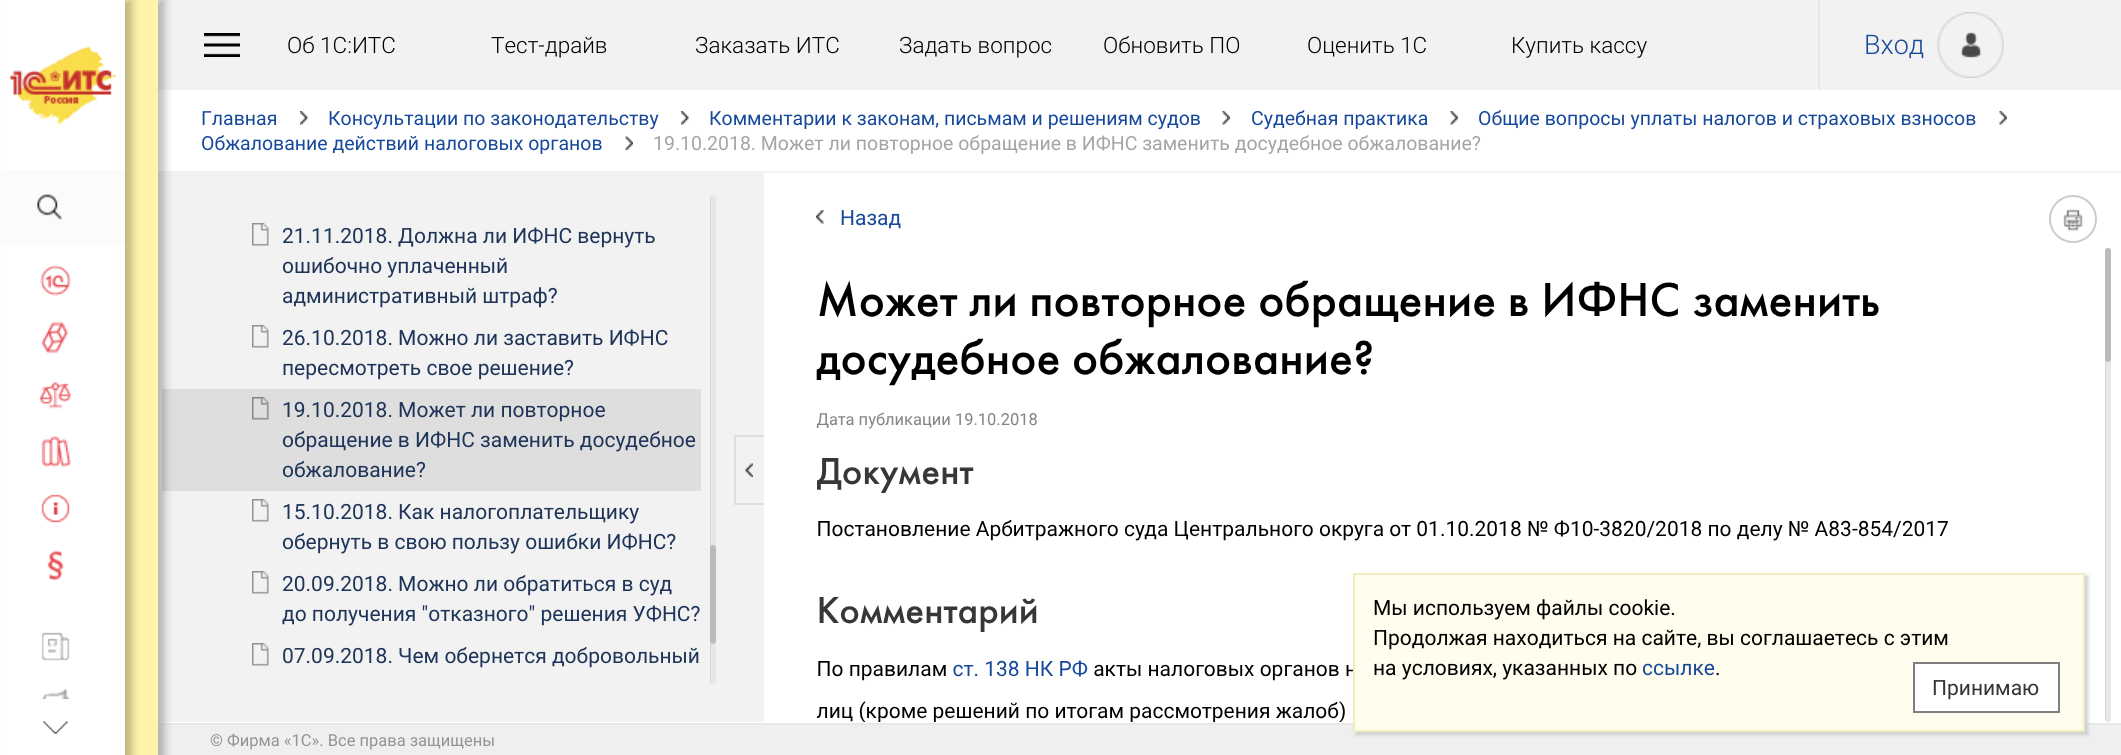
#include <cairo.h>
#include <math.h>
#include <stddef.h>

static cairo_t *c;
static void C(unsigned color){cairo_set_source_rgb(c, (color >> 16) / 255.0, (color >> 8 & 255) / 255.0, (color & 255) / 255.0);}
static void F(const char *family, double size, int italic, int bold){cairo_select_font_face(c, family, italic ? CAIRO_FONT_SLANT_ITALIC : CAIRO_FONT_SLANT_NORMAL,bold ? CAIRO_FONT_WEIGHT_BOLD : CAIRO_FONT_WEIGHT_NORMAL);cairo_set_font_size(c, size);}
static void T(double x, double y, const char *s){cairo_move_to(c, x, y);cairo_show_text(c, s);}
static void R(double x, double y, double w, double h){cairo_rectangle(c, x, y, w, h);cairo_fill(c);}
static void Q(double x, double y, double w, double h, double r){cairo_new_sub_path(c);cairo_arc(c, x + w - r, y + h - r, r, 0, M_PI / 2);cairo_arc(c, x + r, y + h - r, r, M_PI / 2, M_PI);cairo_arc(c, x + r, y + r, r, M_PI, 1.5 * M_PI);cairo_arc(c, x + w - r, y + r, r, 1.5 * M_PI, 2 * M_PI);cairo_close_path(c);}
static void S(double x, double y, double w, double h, double r, double blur, double alpha){cairo_push_group_with_content(c, CAIRO_CONTENT_ALPHA);cairo_set_operator(c, CAIRO_OPERATOR_SOURCE);for (int i = 15; i >= -15 && fmin(w, h) + blur * i / 3 > 0; i -= 2) {double e = blur * i / 6;cairo_set_source_rgba(c, 0, 0, 0, alpha * erfc((i - 1) / 8.5) / 2);Q(x - e, y - e, w + 2 * e, h + 2 * e, fmax(0, fmin(r + e + blur * .6, fmin(w, h) / 2 + e)));cairo_fill(c);}cairo_pattern_t *soft = cairo_pop_group(c);cairo_mask(c, soft);cairo_pattern_destroy(soft);}
static void I(const char *path, double x, double y, double w, double h){cairo_surface_t *image = cairo_image_surface_create_from_png(path);cairo_save(c);cairo_set_source_surface(c, image, x, y);cairo_rectangle(c, x, y, w, h);cairo_fill(c);cairo_restore(c);cairo_surface_destroy(image);}
int main(void) {
cairo_surface_t *surface = cairo_image_surface_create(CAIRO_FORMAT_RGB24, 2121, 755);
c = cairo_create(surface);
cairo_font_options_t *options = cairo_font_options_create();
cairo_font_options_set_hint_metrics(options, CAIRO_HINT_METRICS_OFF);
cairo_font_options_set_hint_style(options, CAIRO_HINT_STYLE_NONE);
cairo_set_font_options(c, options);
cairo_set_miter_limit(c, 4);
C(0xffffff);
cairo_paint(c);
C(0xfff3a9);
R(125,0,33,755);
C(0x000000);
S(8,0,124,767,0,4,.25);
C(0xffffff);
R(1,0,124,755);
I("1.png",40,265,31,31);
I("2.png",41,321,27,33);
I("3.png",40,381,31,28);
I("4.png",41,435,30,33);
I("5.png",41,494,29,29);
I("6.png",47,550,17,31);
C(0xf2f2f2);
R(158,0,1963,90);
R(158,171,1963,2);
R(158,173,606,549);
C(0xdedede);
R(162,389,539,102);
C(0xefefef);
R(158,725,1963,30);
C(0xe8e8e8);
R(158,723,1963,2);
cairo_save(c);
cairo_set_fill_rule(c,CAIRO_FILL_RULE_EVEN_ODD);
cairo_new_path(c);
cairo_move_to(c,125,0);
cairo_line_to(c,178,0);
cairo_line_to(c,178,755);
cairo_line_to(c,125,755);
cairo_close_path(c);
cairo_move_to(c,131,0);
cairo_line_to(c,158,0);
cairo_line_to(c,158,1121);
cairo_line_to(c,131,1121);
cairo_close_path(c);
cairo_clip(c);
C(0x000000);
S(138,0,27,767,0,4,.25);
cairo_restore(c);
I("7.png",41,632,29,29);
I("8.png",40,688,30,11);
I("9.png",10,46,107,79);
C(0xfbfbfb);
R(0,170,125,75);
I("10.png",37,194,25,26);
I("11.png",43,721,25,13);
I("12.png",204,33,36,24);
F("Roboto Light",22.5,0,0);
C(0x000000);
T(287,53,"Об 1С:ИТС");
T(491,53,"Тест-драйв");
T(695,53,"Заказать ИТС");
T(899,53,"Задать вопрос");
T(1103,53,"Обновить ПО");
T(1307,53,"Оценить 1С");
T(1511,53,"Купить кассу");
C(0xe6e6e6);
R(1818,0,2,90);
F("Roboto Light",27,0,0);
C(0x16489b);
T(1864,54,"Вход");
I("13.png",1936,12,68,66);
F("Roboto",19.5,0,0);
T(201,125,"Главная");
I("14.png",300,111,8,14);
T(328,125,"Консультации по законодательству");
I("15.png",681,111,8,14);
T(709,125,"Комментарии к законам, письмам и решениям судов");
I("16.png",1222,111,8,14);
T(1251,125,"Судебная практика");
I("17.png",1450,111,8,14);
T(1478,125,"Общие вопросы уплаты налогов и страховых взносов");
I("16.png",1999,111,8,14);
T(201,150,"Обжалование действий налоговых органов");
I("18.png",625,136,8,14);
C(0xa4a4a4);
T(653,150,"19.10.2018. Может ли повторное обращение в ИФНС заменить досудебное обжалование?");
I("19.png",816,210,8,14);
F("Roboto",21,0,0);
C(0x16489b);
T(840,225,"Назад");
I("20.png",2063,209,20,23);
cairo_arc(c,2073,219,23,0,2 * M_PI);
C(0xcccccc);
cairo_stroke(c);
I("21.png",816,280,1132,442);
C(0xe7e7e7);
Q(2105,248,6,474,3);
cairo_fill(c);
C(0xd8d8d8);
cairo_new_path(c);
cairo_move_to(c,2108,248);
cairo_curve_to(c,2106,248,2105,249,2105,251);
cairo_line_to(c,2105,719);
cairo_curve_to(c,2105,721,2107,722,2109,722);
cairo_curve_to(c,2107,722,2106,720,2106,718);
cairo_line_to(c,2106,250);
cairo_curve_to(c,2106,249,2107,248,2108,248);
cairo_close_path(c);
cairo_fill(c);
C(0xbbbbbb);
Q(2105,248,6,114,3);
cairo_fill(c);
I("22.png",252,223,17,23);
C(0x1e3458);
T(282,243,"21.11.2018. Должна ли ИФНС вернуть");
T(282,273,"ошибочно уплаченный");
T(282,303,"административный штраф?");
I("22.png",252,325,17,23);
T(282,345,"26.10.2018. Можно ли заставить ИФНС");
T(282,375,"пересмотреть свое решение?");
I("23.png",252,397,17,23);
T(282,417,"19.10.2018. Может ли повторное");
T(282,447,"обращение в ИФНС заменить досудебное");
T(282,477,"обжалование?");
I("22.png",252,499,17,23);
T(282,519,"15.10.2018. Как налогоплательщику");
T(282,549,"обернуть в свою пользу ошибки ИФНС?");
I("22.png",252,571,17,23);
T(282,591,"20.09.2018. Можно ли обратиться в суд");
T(282,621,"до получения \"отказного\" решения УФНС?");
I("22.png",252,643,17,23);
T(282,663,"07.09.2018. Чем обернется добровольный");
C(0xe7e7e7);
Q(710,195,6,489,3);
cairo_fill(c);
C(0xd8d8d8);
cairo_new_path(c);
cairo_move_to(c,713,195);
cairo_curve_to(c,711,195,710,196,710,198);
cairo_line_to(c,710,681);
cairo_curve_to(c,710,683,712,684,713,684);
cairo_curve_to(c,712,684,711,683,711,681);
cairo_line_to(c,711,198);
cairo_curve_to(c,711,196,712,195,713,195);
cairo_close_path(c);
cairo_fill(c);
C(0xbbbbbb);
Q(710,545,6,99,3);
cairo_fill(c);
C(0xdedede);
R(734,435,30,2);
R(734,503,30,2);
R(734,435,2,69);
I("24.png",745,463,8,14);
C(0xcccccc);
S(1356,576,732,159,0,2,1);
C(0xfffeee);
cairo_rectangle(c,1354,574,730,157);
cairo_fill_preserve(c);
C(0xf0edbf);
cairo_stroke(c);
C(0x000000);
T(1373,615,"Мы используем файлы cookie.");
T(1373,645,"Продолжая находиться на сайте, вы соглашаетесь с этим");
T(1373,675,"на условиях, указанных по");
C(0x16489b);
T(1642,675,"ссылке");
C(0x000000);
T(1715,675,".");
C(0xffffff);
cairo_rectangle(c,1914,663,145,49);
cairo_fill_preserve(c);
C(0x7f7f7f);
cairo_stroke(c);
C(0x333333);
T(1932,695,"Принимаю");
F("Roboto",16.5,0,0);
C(0x939393);
T(210,746,"© Фирма «1С». Все права защищены");
cairo_surface_write_to_png(surface, "o.png");
cairo_font_options_destroy(options);
cairo_destroy(c);
cairo_surface_destroy(surface);
return 0;
}
